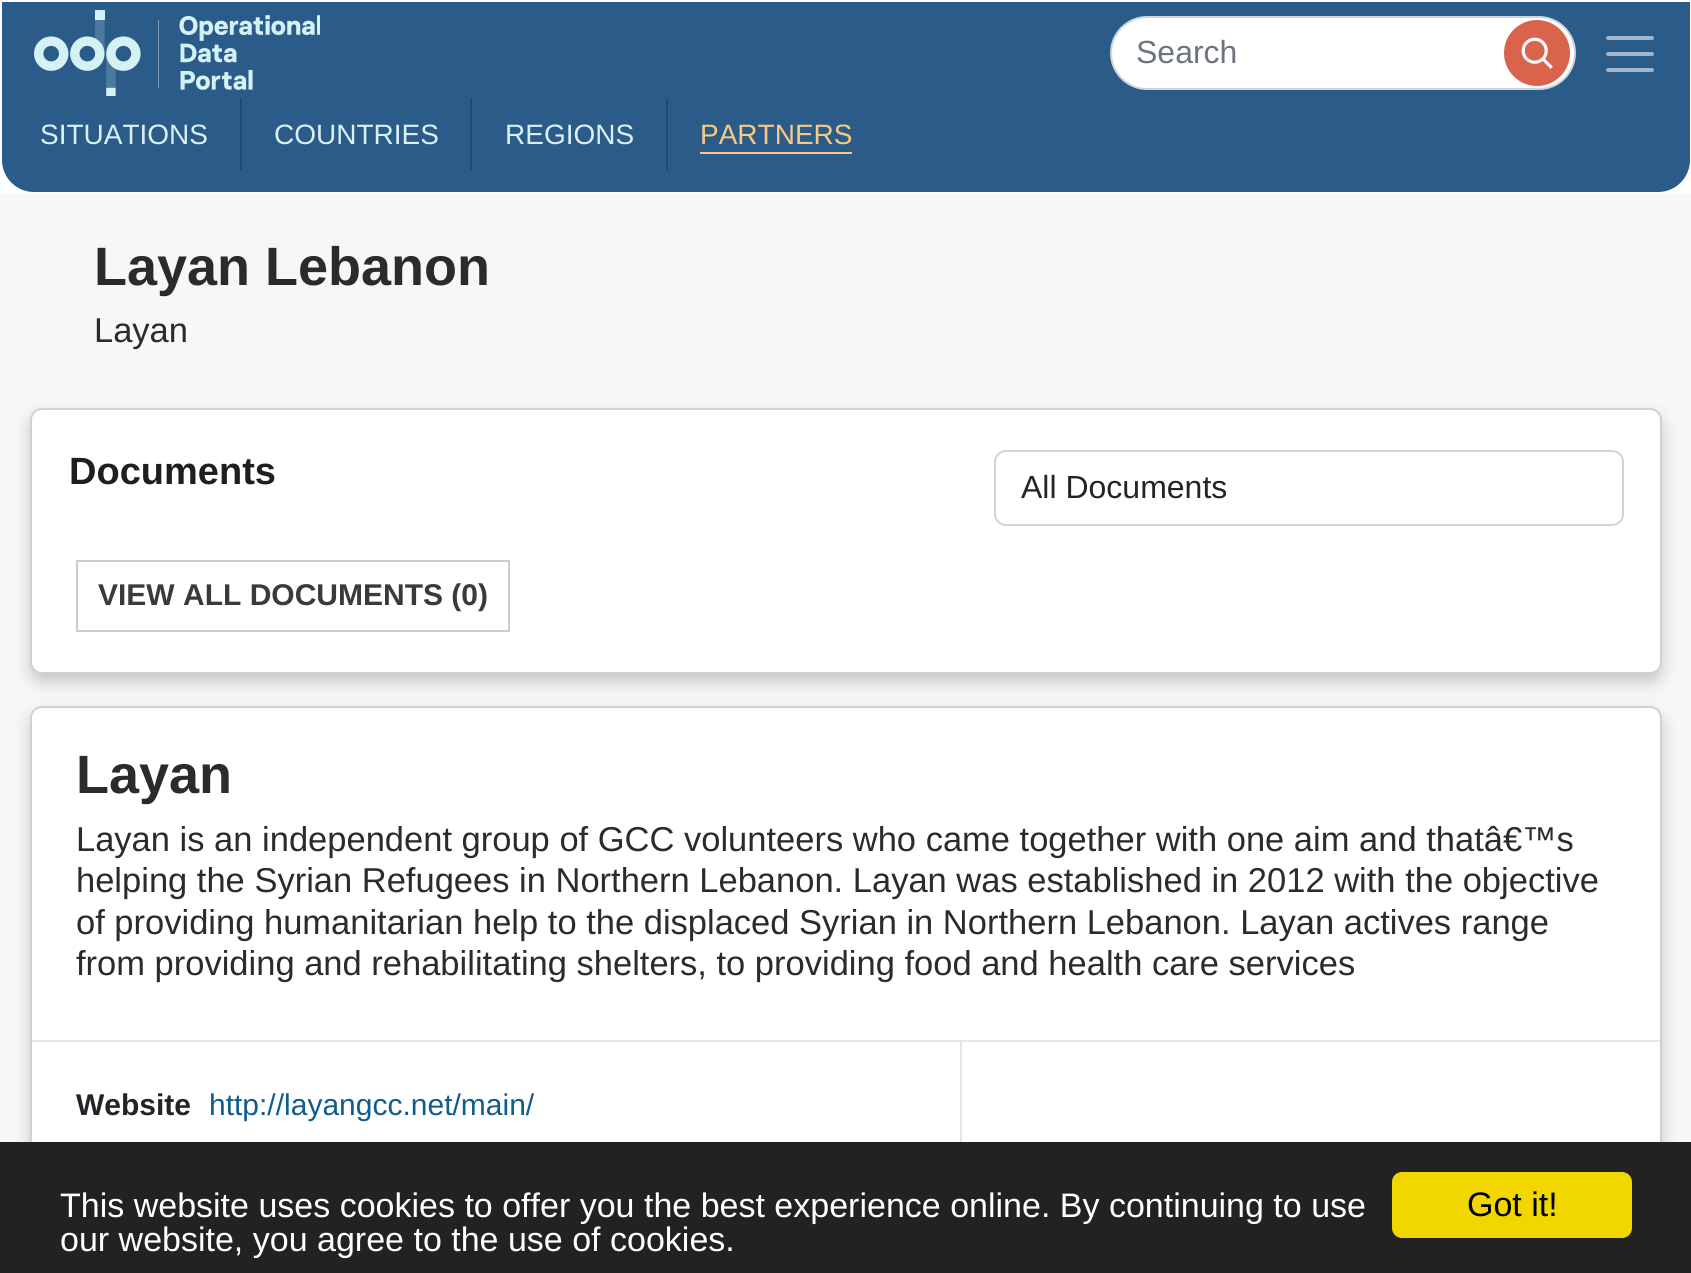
#include <cairo.h>
#include <math.h>
#include <stddef.h>

static cairo_t *c;
static void C(unsigned color){cairo_set_source_rgb(c, (color >> 16) / 255.0, (color >> 8 & 255) / 255.0, (color & 255) / 255.0);}
static void F(const char *family, double size, int italic, int bold){cairo_select_font_face(c, family, italic ? CAIRO_FONT_SLANT_ITALIC : CAIRO_FONT_SLANT_NORMAL,bold ? CAIRO_FONT_WEIGHT_BOLD : CAIRO_FONT_WEIGHT_NORMAL);cairo_set_font_size(c, size);}
static void T(double x, double y, const char *s){cairo_move_to(c, x, y);cairo_show_text(c, s);}
static void R(double x, double y, double w, double h){cairo_rectangle(c, x, y, w, h);cairo_fill(c);}
static void Q(double x, double y, double w, double h, double r){cairo_new_sub_path(c);cairo_arc(c, x + w - r, y + h - r, r, 0, M_PI / 2);cairo_arc(c, x + r, y + h - r, r, M_PI / 2, M_PI);cairo_arc(c, x + r, y + r, r, M_PI, 1.5 * M_PI);cairo_arc(c, x + w - r, y + r, r, 1.5 * M_PI, 2 * M_PI);cairo_close_path(c);}
static void S(double x, double y, double w, double h, double r, double blur, double alpha){cairo_push_group_with_content(c, CAIRO_CONTENT_ALPHA);cairo_set_operator(c, CAIRO_OPERATOR_SOURCE);for (int i = 15; i >= -15 && fmin(w, h) + blur * i / 3 > 0; i -= 2) {double e = blur * i / 6;cairo_set_source_rgba(c, 0, 0, 0, alpha * erfc((i - 1) / 8.5) / 2);Q(x - e, y - e, w + 2 * e, h + 2 * e, fmax(0, fmin(r + e + blur * .6, fmin(w, h) / 2 + e)));cairo_fill(c);}cairo_pattern_t *soft = cairo_pop_group(c);cairo_mask(c, soft);cairo_pattern_destroy(soft);}
static void I(const char *path, double x, double y, double w, double h){cairo_surface_t *image = cairo_image_surface_create_from_png(path);cairo_save(c);cairo_set_source_surface(c, image, x, y);cairo_rectangle(c, x, y, w, h);cairo_fill(c);cairo_restore(c);cairo_surface_destroy(image);}
int main(void) {
cairo_surface_t *surface = cairo_image_surface_create(CAIRO_FORMAT_RGB24, 1691, 1273);
c = cairo_create(surface);
cairo_font_options_t *options = cairo_font_options_create();
cairo_font_options_set_hint_metrics(options, CAIRO_HINT_METRICS_OFF);
cairo_font_options_set_hint_style(options, CAIRO_HINT_STYLE_NONE);
cairo_set_font_options(c, options);
cairo_set_miter_limit(c, 4);
C(0xffffff);
cairo_paint(c);
C(0x2a5b89);
cairo_new_path(c);
cairo_move_to(c,5,5);
cairo_line_to(c,1687,5);
cairo_line_to(c,1687,160);
cairo_curve_to(c,1687,176,1674,189,1658,189);
cairo_line_to(c,34,189);
cairo_curve_to(c,18,189,5,176,5,160);
cairo_close_path(c);
cairo_fill_preserve(c);
cairo_set_line_width(c,6);
cairo_stroke(c);
I("1.png",34,10,286,86);
C(0xffffff);
Q(1111,17,464,72,36);
cairo_fill_preserve(c);
C(0xced4da);
cairo_set_line_width(c,2);
cairo_stroke(c);
F("Liberation Sans",32,0,0);
C(0x6c757d);
T(1136,63,"Search");
C(0xda634b);
cairo_new_path(c);
cairo_arc(c,1537,53,33,0,2 * M_PI);
cairo_fill(c);
I("2.png",1521,37,32,32);
cairo_new_path(c);
cairo_move_to(c,1608,38);
cairo_line_to(c,1652,38);
cairo_move_to(c,1608,54);
cairo_line_to(c,1652,54);
cairo_move_to(c,1608,70);
cairo_line_to(c,1652,70);
C(0x9fb5ca);
cairo_set_line_width(c,4);
cairo_set_line_cap(c,CAIRO_LINE_CAP_ROUND);
cairo_stroke(c);
F("Liberation Sans",28,0,0);
C(0xdaf0f3);
T(40,144,"SITUATIONS");
C(0x22496e);
R(240,98,2,72);
C(0xdaf0f3);
T(274,144,"COUNTRIES");
C(0x22496e);
R(470,98,2,72);
C(0xdaf0f3);
T(505,144,"REGIONS");
C(0x22496e);
R(666,98,2,72);
C(0xf7c983);
T(700,144,"PARTNERS");
R(700,152,152,2);
C(0xf7f7f7);
R(0,194,1691,948);
F("Liberation Sans",54,0,1);
C(0x2b2b2b);
T(94,285,"Layan Lebanon");
F("Liberation Sans",34.5,0,0);
T(94,342,"Layan");
C(0x000000);
S(30,416,1632,266,12,8,.2);
C(0xffffff);
Q(30,408,1632,266,12);
cairo_fill(c);
Q(31,409,1630,264,11);
cairo_set_source_rgba(c,0,0,0,0.18);
cairo_set_line_width(c,2);
cairo_set_line_cap(c,CAIRO_LINE_CAP_BUTT);
cairo_stroke(c);
F("Liberation Sans",38,0,1);
C(0x1f1f1f);
T(69,484,"Documents");
Q(995,451,628,74,11);
C(0xced4da);
cairo_stroke(c);
F("Liberation Sans",32,0,0);
C(0x212529);
T(1021,498,"All Documents");
cairo_rectangle(c,77,561,432,70);
C(0xcccccc);
cairo_stroke(c);
F("Liberation Sans",30,0,1);
C(0x3a3a3a);
T(98,605,"VIEW ALL DOCUMENTS (0)");
C(0x000000);
S(30,714,1632,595,12,8,.2);
C(0xffffff);
Q(30,706,1632,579,12);
cairo_fill(c);
Q(31,707,1630,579,11);
cairo_set_source_rgba(c,0,0,0,0.18);
cairo_stroke(c);
C(0xe6e6e6);
R(32,1040,1628,2);
F("Liberation Sans",54,0,1);
C(0x2b2b2b);
T(76,793,"Layan");
F("Liberation Sans",34.5,0,0);
T(76,851,"Layan is an independent group of GCC volunteers who came together with one aim and thatâ€™s");
T(76,892,"helping the Syrian Refugees in Northern Lebanon. Layan was established in 2012 with the objective");
T(76,934,"of providing humanitarian help to the displaced Syrian in Northern Lebanon. Layan actives range");
T(76,975,"from providing and rehabilitating shelters, to providing food and health care services");
F("Liberation Sans",30,0,1);
C(0x212529);
T(76,1115,"Website");
F("Liberation Sans",30,0,0);
C(0x105c8d);
T(209,1115,"http://layangcc.net/main/");
C(0xe6e6e6);
R(960,1042,2,100);
C(0x222222);
R(0,1142,1691,131);
F("Liberation Sans",34,0,0);
C(0xffffff);
T(60,1217,"This website uses cookies to offer you the best experience online. By continuing to use");
T(60,1251,"our website, you agree to the use of cookies.");
C(0xf1d600);
Q(1392,1172,240,66,10);
cairo_fill(c);
C(0x000000);
T(1467,1216,"Got it!");
cairo_surface_write_to_png(surface, "o.png");
cairo_font_options_destroy(options);
cairo_destroy(c);
cairo_surface_destroy(surface);
return 0;
}
